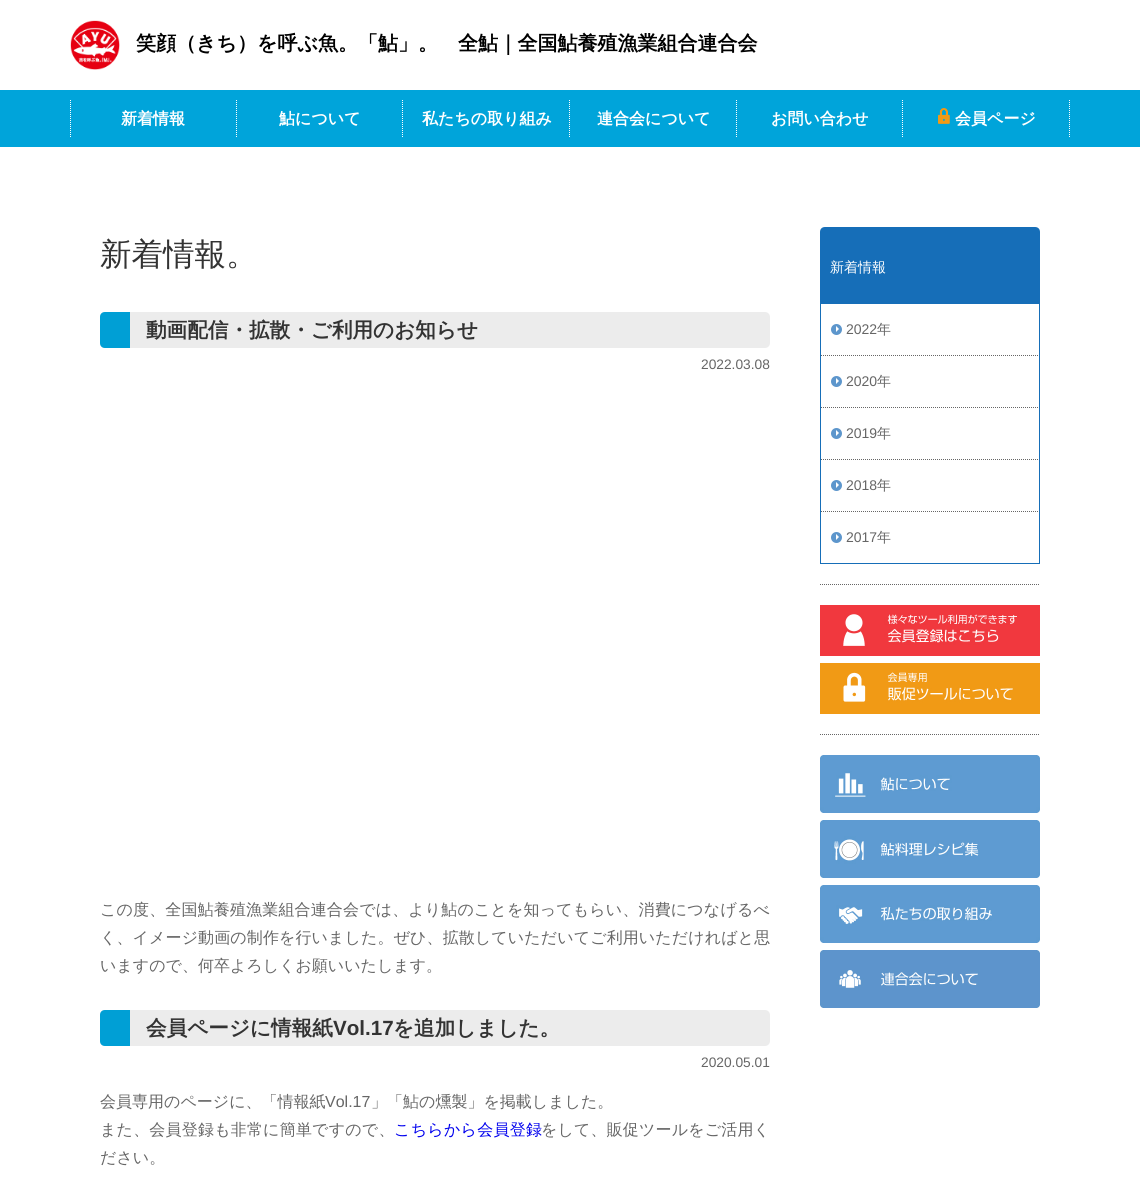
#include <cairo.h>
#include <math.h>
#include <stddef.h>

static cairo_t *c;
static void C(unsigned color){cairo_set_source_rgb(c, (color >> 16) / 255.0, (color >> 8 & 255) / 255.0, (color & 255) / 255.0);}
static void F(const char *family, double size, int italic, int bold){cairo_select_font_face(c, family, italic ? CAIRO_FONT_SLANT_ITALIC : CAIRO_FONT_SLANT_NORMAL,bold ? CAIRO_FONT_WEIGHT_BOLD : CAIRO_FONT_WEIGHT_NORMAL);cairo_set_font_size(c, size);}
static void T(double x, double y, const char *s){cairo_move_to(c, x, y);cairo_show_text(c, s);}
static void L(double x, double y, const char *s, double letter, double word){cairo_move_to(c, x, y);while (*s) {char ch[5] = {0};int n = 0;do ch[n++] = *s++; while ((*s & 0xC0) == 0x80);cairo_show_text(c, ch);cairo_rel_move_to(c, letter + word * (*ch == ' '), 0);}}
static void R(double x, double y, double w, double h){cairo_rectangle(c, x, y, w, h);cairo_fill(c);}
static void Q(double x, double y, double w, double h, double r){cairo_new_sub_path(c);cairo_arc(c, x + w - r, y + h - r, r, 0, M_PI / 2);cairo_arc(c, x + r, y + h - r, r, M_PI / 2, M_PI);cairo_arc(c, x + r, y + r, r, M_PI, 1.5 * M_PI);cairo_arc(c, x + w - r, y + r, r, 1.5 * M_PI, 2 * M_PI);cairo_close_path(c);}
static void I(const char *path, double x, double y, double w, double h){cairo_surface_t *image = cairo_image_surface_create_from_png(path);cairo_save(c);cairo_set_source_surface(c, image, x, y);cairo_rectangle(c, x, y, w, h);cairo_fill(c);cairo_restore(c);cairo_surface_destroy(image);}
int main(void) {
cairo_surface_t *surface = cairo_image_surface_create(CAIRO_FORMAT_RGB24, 1140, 1195);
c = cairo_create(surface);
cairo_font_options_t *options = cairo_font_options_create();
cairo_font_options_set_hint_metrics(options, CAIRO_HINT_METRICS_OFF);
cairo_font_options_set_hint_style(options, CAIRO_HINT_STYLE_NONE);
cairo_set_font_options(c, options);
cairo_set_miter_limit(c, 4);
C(0xffffff);
cairo_paint(c);
I("1.png",70,20,50,50);
F("WenQuanYi Zen Hei",20,0,1);
C(0x000000);
T(136,50,"笑顔（きち）を呼ぶ魚。「鮎」。　全鮎｜全国鮎養殖漁業組合連合会");
C(0x00a4da);
R(0,90,1140,57);
cairo_new_path(c);
cairo_move_to(c,70.5,100);
cairo_line_to(c,70.5,138);
C(0xffffff);
cairo_set_line_width(c,1);
cairo_set_dash(c,(double[]){1,1},2,0);
cairo_stroke(c);
F("WenQuanYi Zen Hei",16,0,1);
T(121,124,"新着情報");
cairo_new_path(c);
cairo_move_to(c,236.5,100);
cairo_line_to(c,236.5,138);
cairo_stroke(c);
T(279,124,"鮎について");
cairo_new_path(c);
cairo_move_to(c,402.5,100);
cairo_line_to(c,402.5,138);
cairo_stroke(c);
T(422,124,"私たちの取り組み");
cairo_new_path(c);
cairo_move_to(c,569.5,100);
cairo_line_to(c,569.5,138);
cairo_stroke(c);
T(597,124,"連合会について");
cairo_new_path(c);
cairo_move_to(c,736.5,100);
cairo_line_to(c,736.5,138);
cairo_stroke(c);
T(771,124,"お問い合わせ");
cairo_new_path(c);
cairo_move_to(c,902.5,100);
cairo_line_to(c,902.5,138);
cairo_stroke(c);
I("2.png",938,108,12,16);
T(955,124,"会員ページ");
cairo_new_path(c);
cairo_move_to(c,1069.5,100);
cairo_line_to(c,1069.5,138);
cairo_stroke(c);
F("WenQuanYi Zen Hei Medium",31.5,0,0);
C(0x333333);
T(100,265,"新着情報。");
C(0xececec);
Q(100,312,670,36,5);
cairo_fill(c);
C(0x009fd5);
cairo_new_path(c);
cairo_move_to(c,105,312);
cairo_line_to(c,130,312);
cairo_line_to(c,130,348);
cairo_line_to(c,105,348);
cairo_curve_to(c,102,348,100,346,100,343);
cairo_line_to(c,100,317);
cairo_curve_to(c,100,314,102,312,105,312);
cairo_close_path(c);
cairo_fill(c);
F("WenQuanYi Zen Hei",20.6,0,1);
C(0x333333);
T(146,337,"動画配信・拡散・ご利用のお知らせ");
F("Liberation Sans",13.75,0,0);
C(0x666666);
T(701,369,"2022.03.08");
F("WenQuanYi Zen Hei Medium",16,0,0);
L(100,915,"この度、全国鮎養殖漁業組合連合会では、より鮎のことを知ってもらい、消費につなげるべ",.15,0);
L(100,943,"く、イメージ動画の制作を行いました。ぜひ、拡散していただいてご利用いただければと思",.1,0);
T(100,971,"いますので、何卒よろしくお願いいたします。");
C(0xececec);
Q(100,1010,670,36,5);
cairo_fill(c);
C(0x009fd5);
cairo_new_path(c);
cairo_move_to(c,105,1010);
cairo_line_to(c,130,1010);
cairo_line_to(c,130,1046);
cairo_line_to(c,105,1046);
cairo_curve_to(c,102,1046,100,1044,100,1041);
cairo_line_to(c,100,1015);
cairo_curve_to(c,100,1012,102,1010,105,1010);
cairo_close_path(c);
cairo_fill(c);
F("WenQuanYi Zen Hei",20.6,0,1);
C(0x333333);
T(146,1035,"会員ページに情報紙");
F("Liberation Sans",20.6,0,1);
T(333,1035,"Vol.17");
F("WenQuanYi Zen Hei",20.6,0,1);
T(393,1035,"を追加しました。");
F("Liberation Sans",13.75,0,0);
C(0x666666);
T(701,1067,"2020.05.01");
F("WenQuanYi Zen Hei Medium",16,0,0);
T(100,1107,"会員専用のページに、「情報紙");
F("Liberation Sans",16,0,0);
T(325,1107,"Vol.17");
F("WenQuanYi Zen Hei Medium",16,0,0);
T(371,1107,"」「鮎の燻製」を掲載しました。");
L(100,1135,"また、会員登録も非常に簡単ですので、",.2,0);
C(0x0000ee);
L(394,1135,"こちらから会員登録",.25,0);
C(0x666666);
L(541,1135,"をして、販促ツールをご活用く",.15,0);
T(100,1163,"ださい。");
cairo_new_path(c);
cairo_move_to(c,820,584.5);
cairo_line_to(c,1040,584.5);
cairo_stroke(c);
C(0x166eb8);
cairo_new_path(c);
cairo_move_to(c,825,227);
cairo_line_to(c,1035,227);
cairo_curve_to(c,1038,227,1040,229,1040,232);
cairo_line_to(c,1040,303);
cairo_line_to(c,820,303);
cairo_line_to(c,820,232);
cairo_curve_to(c,820,229,822,227,825,227);
cairo_close_path(c);
cairo_fill(c);
F("WenQuanYi Zen Hei Medium",14,0,0);
C(0xffffff);
T(830,272,"新着情報");
cairo_rectangle(c,820.5,303.5,219,260);
C(0x166eb8);
cairo_set_dash(c,NULL,0,0);
cairo_stroke(c);
C(0x5d96cc);
cairo_arc(c,836.5,329.5,5.5,0,2 * M_PI);
cairo_fill(c);
F("Liberation Sans",14,0,0);
C(0x666666);
T(846,334,"2022");
F("WenQuanYi Zen Hei Medium",14,0,0);
T(877,334,"年");
C(0xffffff);
cairo_new_path(c);
cairo_move_to(c,836,332);
cairo_line_to(c,836,326);
cairo_line_to(c,839,329);
cairo_close_path(c);
cairo_fill(c);
cairo_new_path(c);
cairo_move_to(c,821,355.5);
cairo_line_to(c,1039,355.5);
C(0x666666);
cairo_set_dash(c,(double[]){1,1},2,0);
cairo_stroke(c);
C(0x5d96cc);
cairo_arc(c,836.5,381.5,5.5,0,2 * M_PI);
cairo_fill(c);
F("Liberation Sans",14,0,0);
C(0x666666);
T(846,386,"2020");
F("WenQuanYi Zen Hei Medium",14,0,0);
T(877,386,"年");
C(0xffffff);
cairo_new_path(c);
cairo_move_to(c,836,384);
cairo_line_to(c,836,378);
cairo_line_to(c,839,381);
cairo_close_path(c);
cairo_fill(c);
cairo_new_path(c);
cairo_move_to(c,821,407.5);
cairo_line_to(c,1039,407.5);
C(0x666666);
cairo_stroke(c);
C(0x5d96cc);
cairo_arc(c,836.5,433.5,5.5,0,2 * M_PI);
cairo_fill(c);
F("Liberation Sans",14,0,0);
C(0x666666);
T(846,438,"2019");
F("WenQuanYi Zen Hei Medium",14,0,0);
T(877,438,"年");
C(0xffffff);
cairo_new_path(c);
cairo_move_to(c,836,436);
cairo_line_to(c,836,430);
cairo_line_to(c,839,433);
cairo_close_path(c);
cairo_fill(c);
cairo_new_path(c);
cairo_move_to(c,821,459.5);
cairo_line_to(c,1039,459.5);
C(0x666666);
cairo_stroke(c);
C(0x5d96cc);
cairo_arc(c,836.5,485.5,5.5,0,2 * M_PI);
cairo_fill(c);
F("Liberation Sans",14,0,0);
C(0x666666);
T(846,490,"2018");
F("WenQuanYi Zen Hei Medium",14,0,0);
T(877,490,"年");
C(0xffffff);
cairo_new_path(c);
cairo_move_to(c,836,488);
cairo_line_to(c,836,482);
cairo_line_to(c,839,485);
cairo_close_path(c);
cairo_fill(c);
cairo_new_path(c);
cairo_move_to(c,821,511.5);
cairo_line_to(c,1039,511.5);
C(0x666666);
cairo_stroke(c);
C(0x5d96cc);
cairo_arc(c,836.5,537.5,5.5,0,2 * M_PI);
cairo_fill(c);
F("Liberation Sans",14,0,0);
C(0x666666);
T(846,542,"2017");
F("WenQuanYi Zen Hei Medium",14,0,0);
T(877,542,"年");
C(0xffffff);
cairo_new_path(c);
cairo_move_to(c,836,540);
cairo_line_to(c,836,534);
cairo_line_to(c,839,537);
cairo_close_path(c);
cairo_fill(c);
I("3.png",820,605,220,51);
I("4.png",820,663,220,51);
cairo_new_path(c);
cairo_move_to(c,820,734.5);
cairo_line_to(c,1040,734.5);
C(0x666666);
cairo_stroke(c);
I("5.png",820,755,220,58);
I("6.png",820,820,220,58);
I("7.png",820,885,220,58);
I("8.png",820,950,220,58);
cairo_surface_write_to_png(surface, "o.png");
cairo_font_options_destroy(options);
cairo_destroy(c);
cairo_surface_destroy(surface);
return 0;
}
